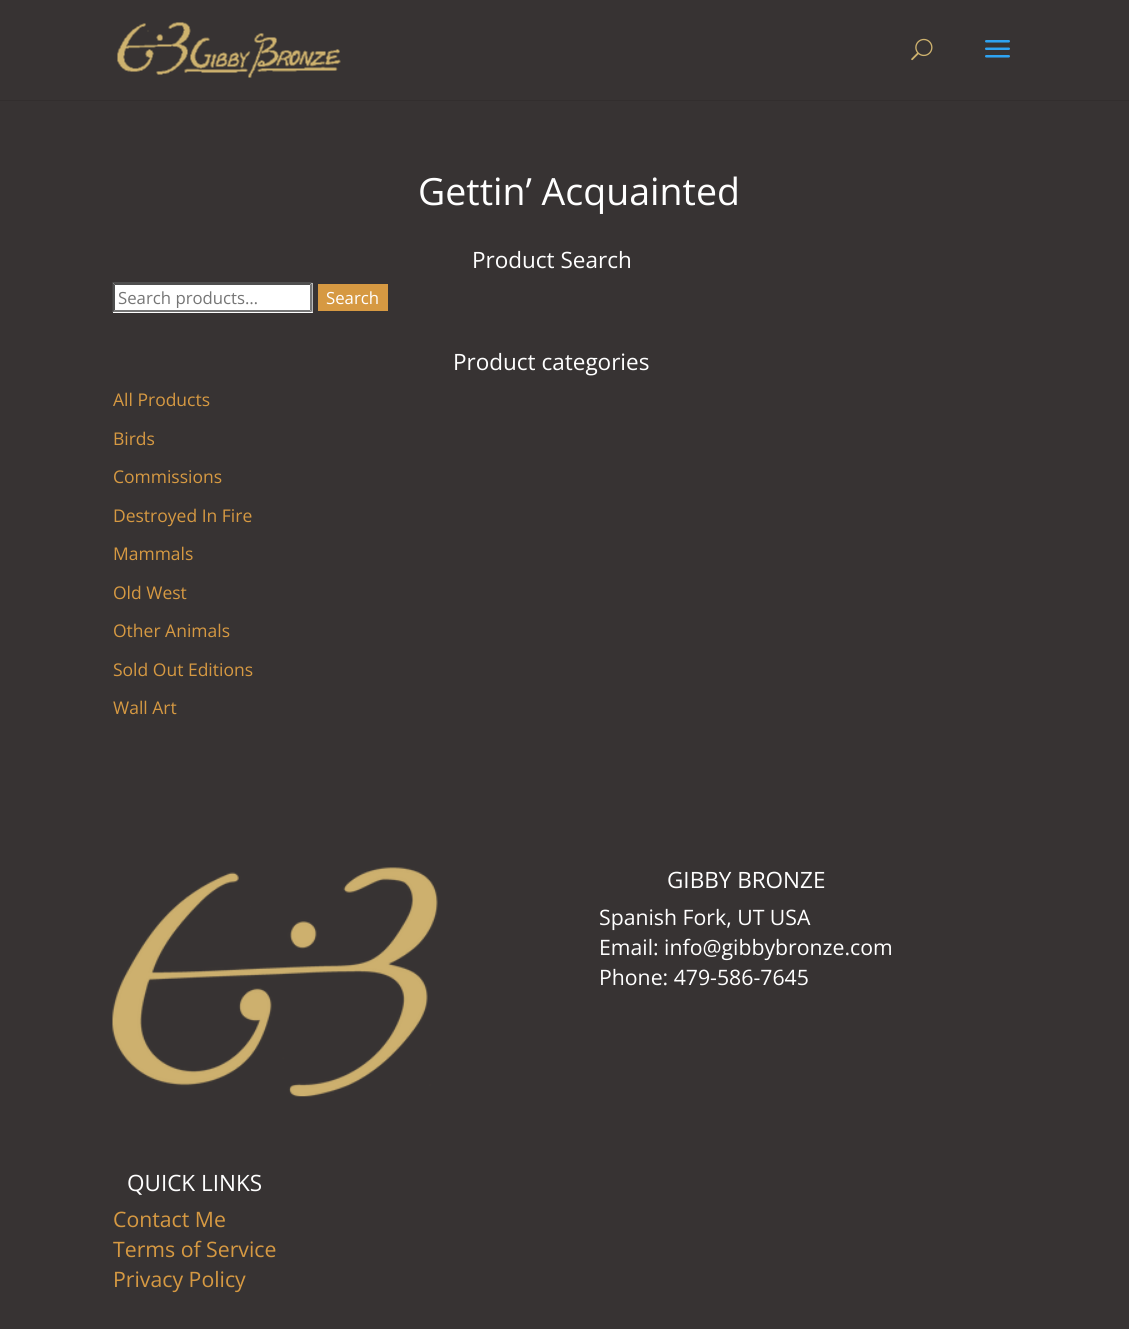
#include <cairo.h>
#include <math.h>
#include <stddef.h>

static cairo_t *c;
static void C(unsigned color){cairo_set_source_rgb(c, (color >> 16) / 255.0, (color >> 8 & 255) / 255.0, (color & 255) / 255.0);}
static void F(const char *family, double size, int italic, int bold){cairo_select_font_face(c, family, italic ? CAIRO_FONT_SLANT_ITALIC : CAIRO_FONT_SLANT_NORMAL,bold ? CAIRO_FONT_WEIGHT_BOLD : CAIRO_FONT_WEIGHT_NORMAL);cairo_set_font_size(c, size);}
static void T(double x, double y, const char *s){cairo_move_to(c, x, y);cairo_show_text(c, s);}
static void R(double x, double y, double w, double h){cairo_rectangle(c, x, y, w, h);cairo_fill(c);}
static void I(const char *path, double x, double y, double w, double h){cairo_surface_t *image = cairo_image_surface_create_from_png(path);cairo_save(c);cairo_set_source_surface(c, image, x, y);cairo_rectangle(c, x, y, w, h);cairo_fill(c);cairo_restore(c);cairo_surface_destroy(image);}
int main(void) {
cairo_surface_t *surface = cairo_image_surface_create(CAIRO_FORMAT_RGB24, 1129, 1329);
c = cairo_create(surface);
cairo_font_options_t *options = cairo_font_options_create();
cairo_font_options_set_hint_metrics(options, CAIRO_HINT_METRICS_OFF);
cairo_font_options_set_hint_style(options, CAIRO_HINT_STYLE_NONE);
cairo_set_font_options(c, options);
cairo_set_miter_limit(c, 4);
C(0x373333);
cairo_paint(c);
C(0x322e2e);
R(0,100,1129,1);
I("1.png",117,22,224,56);
I("2.png",911,38,22,23);
I("3.png",985,40,25,18);
F("Open Sans",37.5,0,0);
C(0xffffff);
T(418,205,"Gettin’ Acquainted");
F("Open Sans",22.5,0,0);
T(472,268,"Product Search");
R(113,283,200,30);
C(0x4f4f4f);
cairo_new_path(c);
cairo_move_to(c,112,282);
cairo_line_to(c,312,282);
cairo_line_to(c,310,285);
cairo_line_to(c,115,285);
cairo_close_path(c);
cairo_fill(c);
C(0x767676);
cairo_new_path(c);
cairo_move_to(c,312.5,282.5);
cairo_line_to(c,312.5,312.5);
cairo_line_to(c,310,310);
cairo_line_to(c,310,285);
cairo_close_path(c);
cairo_fill(c);
cairo_new_path(c);
cairo_move_to(c,312,312);
cairo_line_to(c,112,312);
cairo_line_to(c,115,310);
cairo_line_to(c,310,310);
cairo_close_path(c);
cairo_fill(c);
C(0x4f4f4f);
cairo_new_path(c);
cairo_move_to(c,112.5,312.5);
cairo_line_to(c,112.5,282.5);
cairo_line_to(c,115,285);
cairo_line_to(c,115,310);
cairo_close_path(c);
cairo_fill(c);
F("Open Sans",16.75,0,0);
C(0x757575);
T(118,304,"Search products…");
C(0xd69942);
R(318,284,70,27);
C(0xffffff);
T(326,304,"Search");
F("Open Sans",22.5,0,0);
T(453,370,"Product categories");
F("Open Sans",17.5,0,0);
C(0xd69942);
T(113,406,"All Products");
T(113,445,"Birds");
T(113,483,"Commissions");
T(113,522,"Destroyed In Fire");
T(113,560,"Mammals");
T(113,599,"Old West");
T(113,637,"Other Animals");
T(113,676,"Sold Out Editions");
T(113,714,"Wall Art");
I("4.png",112,867,326,230);
F("Open Sans",22.5,0,0);
C(0xffffff);
T(667,888,"GIBBY BRONZE");
F("Open Sans",21.25,0,0);
T(599,925,"Spanish Fork, UT USA");
T(599,955,"Email: info@gibbybronze.com");
T(599,985,"Phone: 479-586-7645");
F("Open Sans",22.5,0,0);
T(127,1191,"QUICK LINKS");
F("Open Sans",21.25,0,0);
C(0xd69942);
T(113,1227,"Contact Me");
T(113,1257,"Terms of Service");
T(113,1287,"Privacy Policy");
cairo_surface_write_to_png(surface, "o.png");
cairo_font_options_destroy(options);
cairo_destroy(c);
cairo_surface_destroy(surface);
return 0;
}
